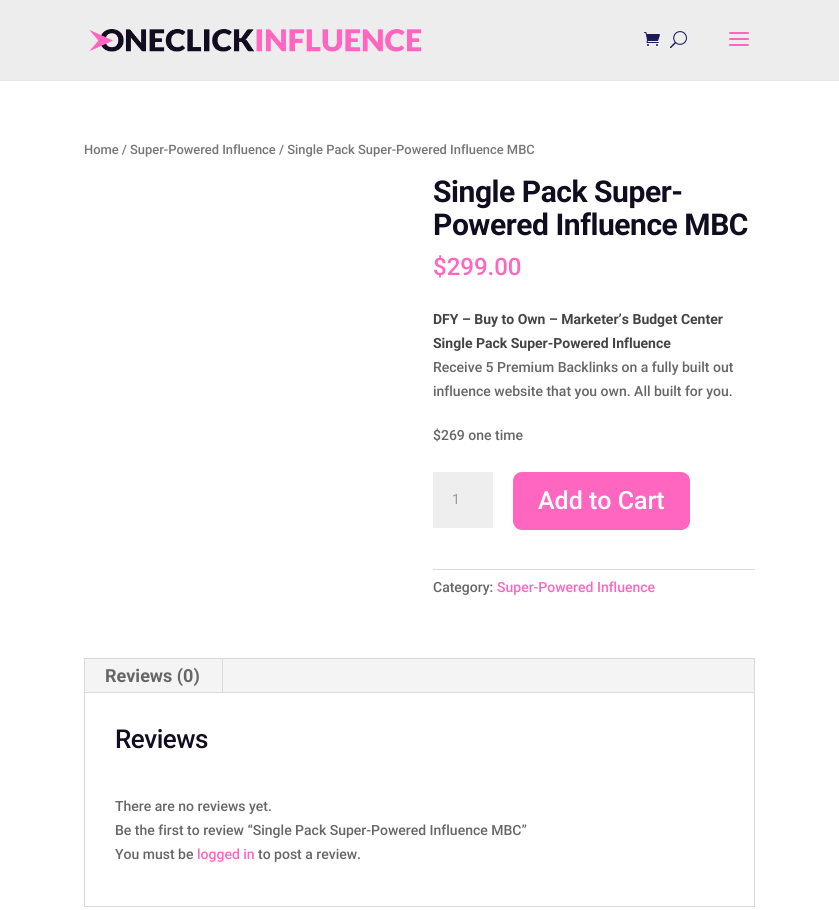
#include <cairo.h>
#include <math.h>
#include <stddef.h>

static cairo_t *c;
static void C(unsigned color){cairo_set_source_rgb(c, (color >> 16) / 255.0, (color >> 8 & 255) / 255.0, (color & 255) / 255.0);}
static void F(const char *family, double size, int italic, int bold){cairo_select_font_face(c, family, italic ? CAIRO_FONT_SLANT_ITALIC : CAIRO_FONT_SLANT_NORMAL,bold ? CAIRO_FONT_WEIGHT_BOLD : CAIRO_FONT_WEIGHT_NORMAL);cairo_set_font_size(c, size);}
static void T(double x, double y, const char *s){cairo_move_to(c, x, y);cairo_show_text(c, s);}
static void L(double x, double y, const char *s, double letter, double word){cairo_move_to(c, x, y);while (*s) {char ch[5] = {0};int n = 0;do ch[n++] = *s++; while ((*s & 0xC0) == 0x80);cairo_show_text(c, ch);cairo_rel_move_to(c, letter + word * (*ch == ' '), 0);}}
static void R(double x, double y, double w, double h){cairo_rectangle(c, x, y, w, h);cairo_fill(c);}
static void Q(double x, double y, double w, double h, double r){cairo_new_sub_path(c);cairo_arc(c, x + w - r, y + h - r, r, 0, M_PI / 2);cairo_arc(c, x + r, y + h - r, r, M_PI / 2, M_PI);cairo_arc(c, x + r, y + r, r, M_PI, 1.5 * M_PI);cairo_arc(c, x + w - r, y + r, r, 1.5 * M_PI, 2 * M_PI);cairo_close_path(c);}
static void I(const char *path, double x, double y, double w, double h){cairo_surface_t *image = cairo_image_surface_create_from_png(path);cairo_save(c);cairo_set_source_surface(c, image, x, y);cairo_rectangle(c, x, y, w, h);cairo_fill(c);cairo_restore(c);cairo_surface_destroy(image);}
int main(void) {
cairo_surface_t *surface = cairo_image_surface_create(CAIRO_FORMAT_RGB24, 839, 910);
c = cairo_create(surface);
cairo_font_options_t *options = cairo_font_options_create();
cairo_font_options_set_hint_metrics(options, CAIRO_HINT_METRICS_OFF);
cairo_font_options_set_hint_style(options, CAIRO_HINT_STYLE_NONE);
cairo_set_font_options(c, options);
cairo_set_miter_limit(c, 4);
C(0xffffff);
cairo_paint(c);
C(0xe6e6e6);
R(0,80,839,1);
C(0xededed);
R(0,0,839,80);
I("1.png",89,29,333,23);
I("2.png",644,32,16,14);
I("3.png",670,31,17,18);
I("4.png",729,32,20,14);
F("Roboto Medium",12.9,0,0);
C(0x767676);
T(84,154,"Home / Super-Powered Influence / Single Pack Super-Powered Influence MBC");
F("Roboto",30,0,1);
C(0x120c1f);
L(433,202,"Single Pack Super-",-.45,0);
L(433,235,"Powered Influence MBC",-.45,0);
F("Roboto Medium",24,0,0);
C(0xff66bf);
T(433,275,"$299.00");
F("Roboto",14,0,1);
C(0x444444);
T(433,324,"DFY – Buy to Own – Marketer’s Budget Center");
T(433,348,"Single Pack Super-Powered Influence");
F("Roboto Medium",14,0,0);
C(0x666666);
T(433,372,"Receive 5 Premium Backlinks on a fully built out");
T(433,396,"influence website that you own. All built for you.");
T(433,440,"$269 one time");
C(0xeeeeee);
R(433,472,60,56);
F("Roboto",14,0,0);
C(0x999999);
T(452,504,"1");
C(0xff66bf);
Q(513,472,177,58,9);
cairo_fill(c);
F("Roboto Medium",25,0,0);
C(0xffffff);
T(538,509,"Add to Cart");
C(0xdadada);
R(433,569,322,1);
F("Roboto Medium",14,0,0);
C(0x666666);
T(433,592,"Category:");
C(0xff66bf);
T(497,592,"Super-Powered Influence");
cairo_rectangle(c,84.5,658.5,670,248);
C(0xd9d9d9);
cairo_set_line_width(c,1);
cairo_stroke(c);
C(0xf4f4f4);
R(85,659,669,33);
C(0xd9d9d9);
R(222,659,1,34);
F("Roboto",18,0,1);
C(0x666666);
T(105,682,"Reviews (0)");
C(0xd9d9d9);
R(85,692,669,1);
F("Roboto Medium",26,0,0);
C(0x120c1f);
L(115,748,"Reviews",-.5,0);
F("Roboto Medium",14,0,0);
C(0x666666);
T(115,811,"There are no reviews yet.");
T(115,835,"Be the first to review “Single Pack Super-Powered Influence MBC”");
T(115,859,"You must be");
C(0xff66bf);
T(197,859,"logged in");
C(0x666666);
T(258,859,"to post a review.");
cairo_surface_write_to_png(surface, "o.png");
cairo_font_options_destroy(options);
cairo_destroy(c);
cairo_surface_destroy(surface);
return 0;
}
